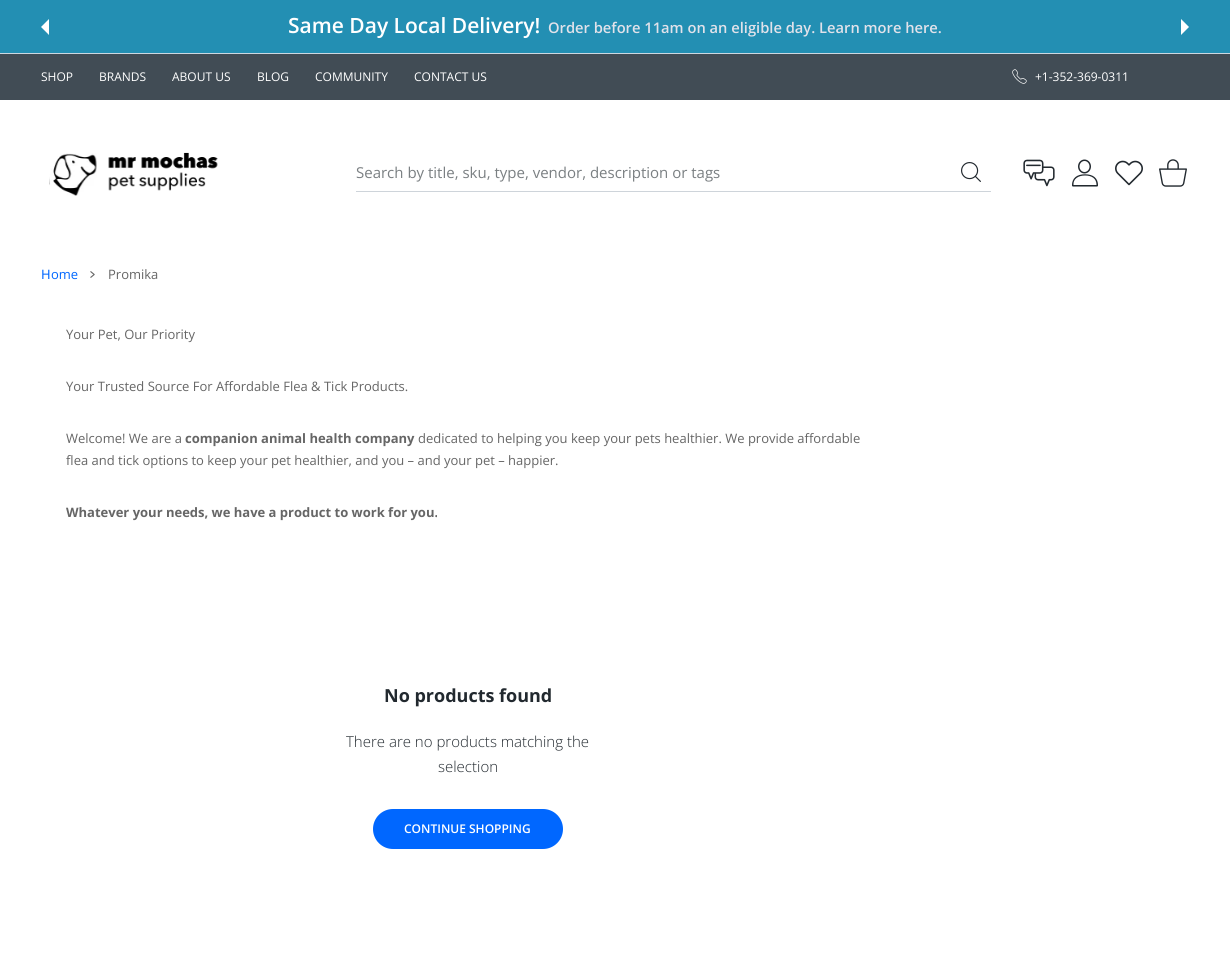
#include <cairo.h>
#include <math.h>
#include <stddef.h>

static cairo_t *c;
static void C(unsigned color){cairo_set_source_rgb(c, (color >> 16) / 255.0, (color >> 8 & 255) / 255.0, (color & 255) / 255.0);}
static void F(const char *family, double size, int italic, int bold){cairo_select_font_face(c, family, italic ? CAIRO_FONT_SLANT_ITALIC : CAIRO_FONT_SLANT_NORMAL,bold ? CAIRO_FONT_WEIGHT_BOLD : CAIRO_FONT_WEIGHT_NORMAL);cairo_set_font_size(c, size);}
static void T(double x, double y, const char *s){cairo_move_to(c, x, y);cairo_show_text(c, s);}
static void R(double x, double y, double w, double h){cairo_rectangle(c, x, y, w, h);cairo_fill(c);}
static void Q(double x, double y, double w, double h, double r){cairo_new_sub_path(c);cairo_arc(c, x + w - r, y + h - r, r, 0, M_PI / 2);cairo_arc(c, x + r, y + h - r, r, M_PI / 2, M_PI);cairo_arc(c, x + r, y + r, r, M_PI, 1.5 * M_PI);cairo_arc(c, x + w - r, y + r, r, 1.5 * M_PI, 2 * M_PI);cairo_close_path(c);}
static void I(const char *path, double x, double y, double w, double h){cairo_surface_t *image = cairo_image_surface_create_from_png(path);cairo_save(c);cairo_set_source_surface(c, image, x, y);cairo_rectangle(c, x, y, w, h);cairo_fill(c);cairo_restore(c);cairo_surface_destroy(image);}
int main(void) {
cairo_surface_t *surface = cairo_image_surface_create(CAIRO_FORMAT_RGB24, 1230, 960);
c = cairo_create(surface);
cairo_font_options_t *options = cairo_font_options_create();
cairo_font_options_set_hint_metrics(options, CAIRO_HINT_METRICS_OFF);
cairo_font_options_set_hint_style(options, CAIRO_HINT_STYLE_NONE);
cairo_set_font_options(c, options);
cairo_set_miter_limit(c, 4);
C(0xffffff);
cairo_paint(c);
C(0x238fb3);
R(0,0,1230,53);
F("Open Sans SemiBold",21,0,0);
C(0xffffff);
T(288,33,"Same Day Local Delivery!");
F("Open Sans SemiBold",14.7,0,0);
C(0xe1e2ea);
T(548,33,"Order before 11am on an eligible day. Learn more here.");
C(0xffffff);
cairo_new_path(c);
cairo_move_to(c,49,19);
cairo_line_to(c,49,35);
cairo_line_to(c,41,27);
cairo_close_path(c);
cairo_fill(c);
cairo_new_path(c);
cairo_move_to(c,1181,35);
cairo_line_to(c,1181,19);
cairo_line_to(c,1189,27);
cairo_close_path(c);
cairo_fill(c);
C(0xcdd8e1);
R(0,53,1230,1);
C(0x414c55);
R(0,54,1230,46);
F("Open Sans",12,0,0);
C(0xffffff);
T(41,81,"SHOP");
T(99,81,"BRANDS");
T(172,81,"ABOUT US");
T(257,81,"BLOG");
T(315,81,"COMMUNITY");
T(414,81,"CONTACT US");
I("1.png",1012,69,15,15);
T(1035,81,"+1-352-369-0311");
I("2.png",49,152,169,44);
C(0xced4da);
R(356,191,635,1);
F("Open Sans",15,0,0);
C(0x7a7f82);
T(356,178,"Search by title, sku, type, vendor, description or tags");
I("3.png",961,162,20,20);
I("4.png",1023,159,32,28);
I("5.png",1072,159,26,28);
I("6.png",1115,160,28,26);
I("7.png",1159,159,28,28);
F("Noto Sans",13,0,0);
C(0x0067ff);
T(41,279,"H");
F("Open Sans",13,0,0);
T(51,279,"ome");
I("8.png",90,271,5,7);
C(0x666666);
T(108,279,"Promika");
T(66,339,"Your Pet, Our Priority");
T(66,391,"Your Trusted Source For Affordable Flea & Tick Products.");
T(66,443,"Welcome! We are a");
F("Open Sans",13,0,1);
T(185,443,"companion animal health company");
F("Open Sans",13,0,0);
T(418,443,"dedicated to helping you keep your pets healthier. We provide affordable");
T(66,465,"flea and tick options to keep your pet healthier, and you – and your pet – happier.");
F("Open Sans",13,0,1);
T(66,517,"Whatever your needs, we have a product to work for you.");
F("Open Sans",18,0,1);
C(0x22292f);
T(384,702,"No products found");
F("Open Sans Light",15,0,0);
T(346,747,"There are no products matching the");
T(438,772,"selection");
C(0x0067ff);
Q(373,809,190,40,20);
cairo_fill(c);
F("Open Sans SemiBold",12,0,0);
C(0xffffff);
T(404,833,"CONTINUE SHOPPING");
cairo_surface_write_to_png(surface, "o.png");
cairo_font_options_destroy(options);
cairo_destroy(c);
cairo_surface_destroy(surface);
return 0;
}
